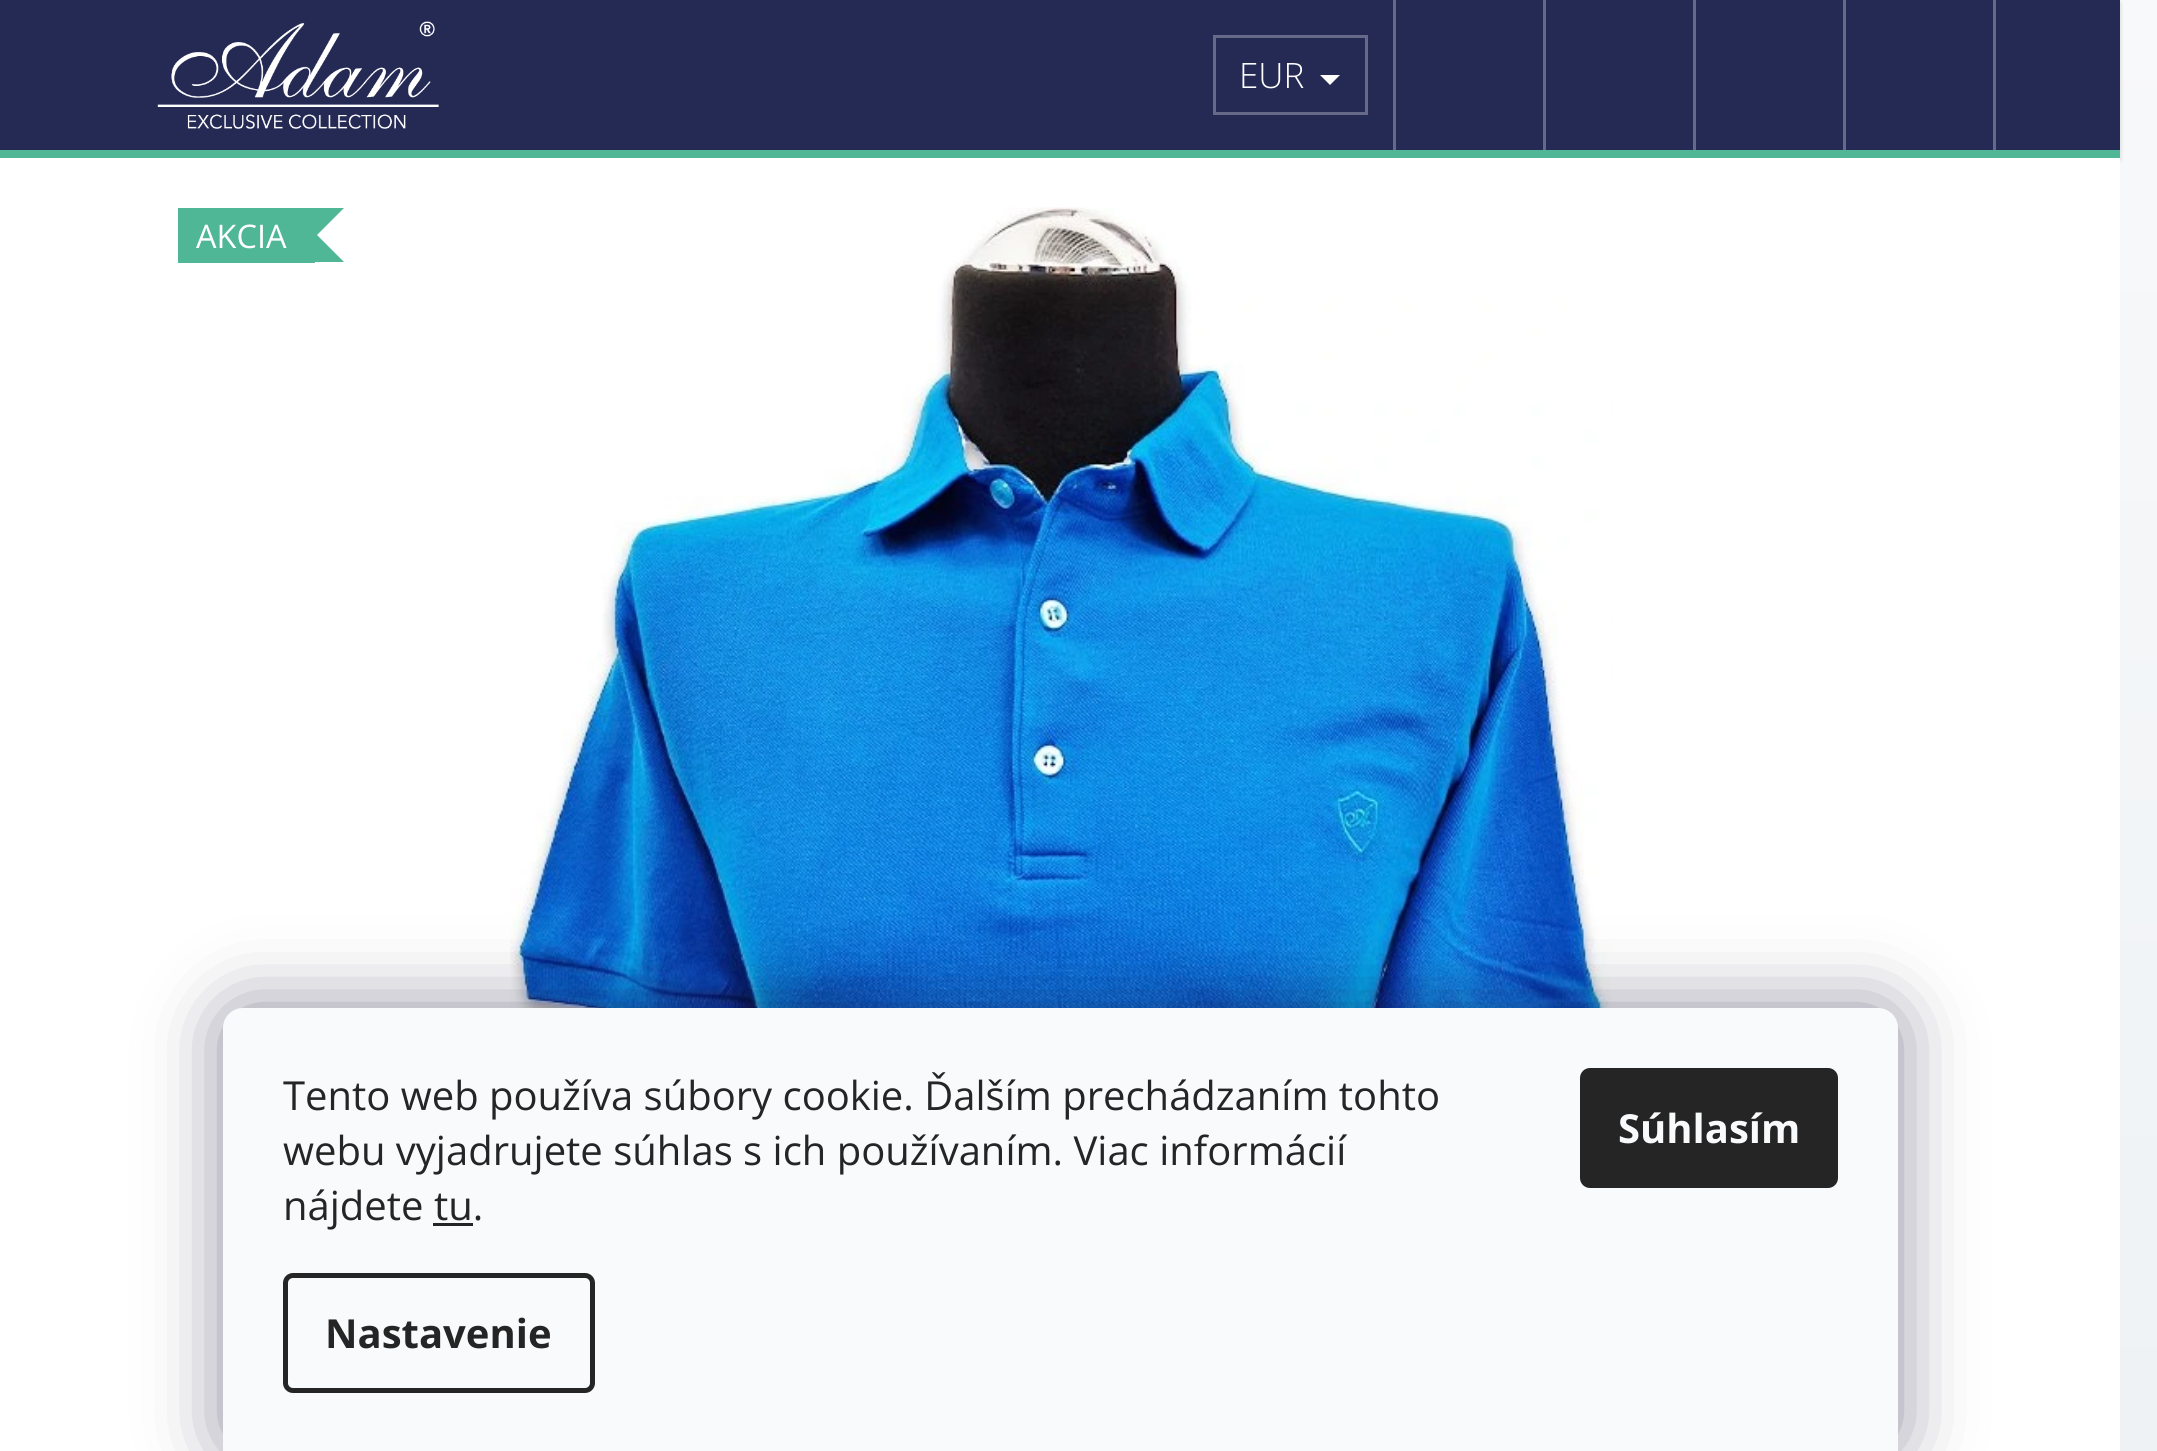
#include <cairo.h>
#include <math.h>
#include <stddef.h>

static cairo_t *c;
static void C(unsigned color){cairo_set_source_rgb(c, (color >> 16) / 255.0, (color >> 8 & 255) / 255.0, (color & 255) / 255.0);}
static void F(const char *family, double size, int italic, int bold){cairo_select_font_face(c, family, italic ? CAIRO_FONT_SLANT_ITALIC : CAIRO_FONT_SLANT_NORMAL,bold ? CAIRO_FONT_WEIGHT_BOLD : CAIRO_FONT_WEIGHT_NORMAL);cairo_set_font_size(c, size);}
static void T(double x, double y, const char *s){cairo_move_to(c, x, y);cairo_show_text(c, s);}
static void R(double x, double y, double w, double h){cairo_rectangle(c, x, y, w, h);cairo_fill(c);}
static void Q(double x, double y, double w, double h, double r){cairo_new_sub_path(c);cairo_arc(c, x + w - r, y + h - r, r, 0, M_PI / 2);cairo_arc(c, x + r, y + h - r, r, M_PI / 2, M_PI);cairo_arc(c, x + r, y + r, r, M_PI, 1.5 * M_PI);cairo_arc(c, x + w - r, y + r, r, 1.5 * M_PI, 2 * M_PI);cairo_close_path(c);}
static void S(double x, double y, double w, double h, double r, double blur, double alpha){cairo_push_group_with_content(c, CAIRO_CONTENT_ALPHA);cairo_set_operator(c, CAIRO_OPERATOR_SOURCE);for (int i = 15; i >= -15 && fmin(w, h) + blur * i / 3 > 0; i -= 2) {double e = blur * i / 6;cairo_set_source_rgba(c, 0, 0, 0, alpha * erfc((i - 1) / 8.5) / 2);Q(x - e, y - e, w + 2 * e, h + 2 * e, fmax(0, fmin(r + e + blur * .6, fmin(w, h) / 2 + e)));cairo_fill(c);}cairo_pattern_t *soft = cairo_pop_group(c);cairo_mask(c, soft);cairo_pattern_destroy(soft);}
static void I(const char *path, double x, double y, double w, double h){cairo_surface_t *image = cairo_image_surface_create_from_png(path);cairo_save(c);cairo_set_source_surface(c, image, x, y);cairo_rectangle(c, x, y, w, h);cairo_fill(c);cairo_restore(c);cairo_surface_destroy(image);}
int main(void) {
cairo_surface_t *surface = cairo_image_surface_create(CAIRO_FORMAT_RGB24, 2157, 1451);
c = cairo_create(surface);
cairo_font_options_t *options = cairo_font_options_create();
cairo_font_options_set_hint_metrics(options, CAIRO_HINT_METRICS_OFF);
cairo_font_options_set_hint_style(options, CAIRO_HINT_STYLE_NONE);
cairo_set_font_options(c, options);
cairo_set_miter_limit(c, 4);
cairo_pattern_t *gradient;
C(0xffffff);
cairo_paint(c);
gradient = cairo_pattern_create_linear(1060,0,1060,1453);
cairo_pattern_add_color_stop_rgba(gradient,0,0.973,0.976,0.98,1);
cairo_pattern_add_color_stop_rgba(gradient,1,0.933,0.949,0.961,1);
cairo_set_source(c,gradient);
cairo_pattern_destroy(gradient);
R(2120,0,37,1451);
C(0x000000);
S(0,3,2120,157,0,2.5,.16);
C(0x252a55);
R(0,0,2120,150);
C(0x4fb696);
R(0,150,2120,8);
I("1.png",157,21,282,108);
C(0x666a88);
R(1993,0,3,150);
cairo_rectangle(c,1214.5,36.5,152,77);
cairo_set_line_width(c,3);
cairo_stroke(c);
F("Open Sans Light",35,0,0);
C(0xffffff);
T(1239,88,"EUR");
cairo_new_path(c);
cairo_move_to(c,1320,75);
cairo_line_to(c,1340,75);
cairo_line_to(c,1330,85);
cairo_close_path(c);
cairo_fill(c);
C(0x666a88);
R(1393,0,3,150);
R(1543,0,3,150);
R(1693,0,3,150);
R(1843,0,3,150);
C(0xffffff);
R(0,158,2120,6);
C(0x4fb696);
R(178,208,137,55);
F("Open Sans",32.5,0,0);
C(0xffffff);
T(196,248,"AKCIA");
C(0x4fb696);
cairo_new_path(c);
cairo_move_to(c,284,232);
cairo_line_to(c,314,232);
cairo_line_to(c,344,262);
cairo_line_to(c,314,262);
cairo_close_path(c);
cairo_fill(c);
cairo_new_path(c);
cairo_move_to(c,314,208);
cairo_line_to(c,344,208);
cairo_line_to(c,314,238);
cairo_line_to(c,284,238);
cairo_close_path(c);
cairo_fill(c);
I("2.png",510,207,1103,801);
C(0x1b1939);
S(223,1008,1675,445,20,37.5,.5);
C(0xf8fafb);
cairo_new_path(c);
cairo_move_to(c,243,1008);
cairo_line_to(c,1878,1008);
cairo_curve_to(c,1889,1008,1898,1017,1898,1028);
cairo_line_to(c,1898,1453);
cairo_line_to(c,223,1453);
cairo_line_to(c,223,1028);
cairo_curve_to(c,223,1017,232,1008,243,1008);
cairo_close_path(c);
cairo_fill(c);
F("Open Sans",40,0,0);
C(0x252525);
T(283,1110,"Tento web používa súbory cookie. Ďalším prechádzaním tohto");
T(283,1165,"webu vyjadrujete súhlas s ich používaním. Viac informácií");
T(283,1220,"nájdete tu.");
R(433,1223,40,3);
Q(285.5,1275.5,307,115,7.5);
cairo_set_line_width(c,5);
cairo_stroke(c);
F("Open Sans",40,0,1);
T(325,1348,"Nastavenie");
Q(1580,1068,258,120,10);
cairo_fill(c);
C(0xf8fafb);
T(1618,1143,"Súhlasím");
cairo_surface_write_to_png(surface, "o.png");
cairo_font_options_destroy(options);
cairo_destroy(c);
cairo_surface_destroy(surface);
return 0;
}
